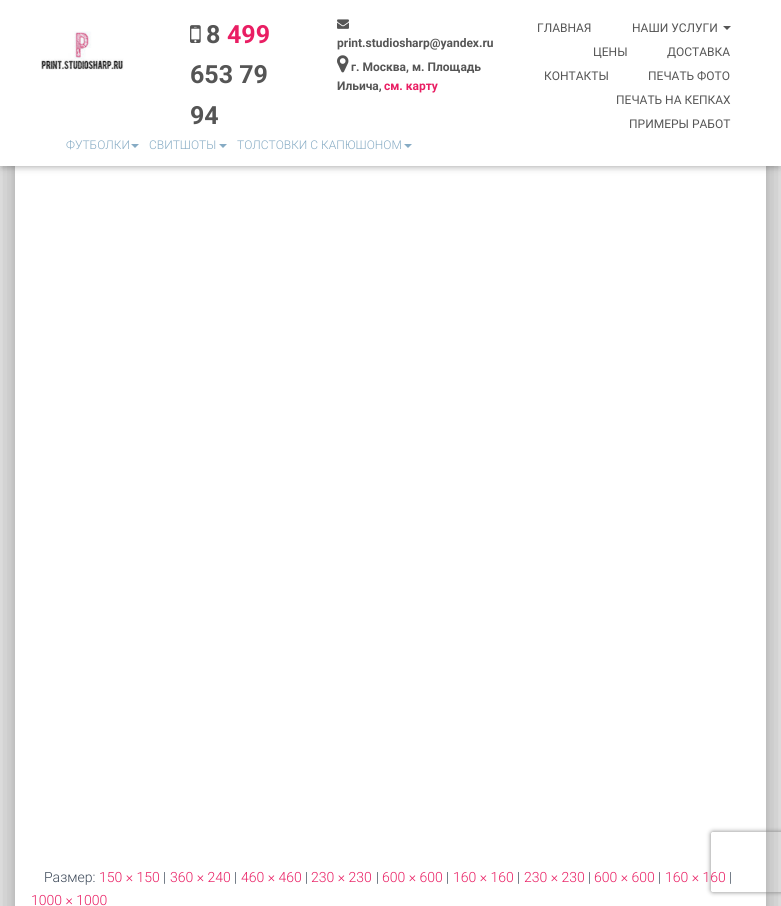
#include <cairo.h>
#include <math.h>
#include <stddef.h>

static cairo_t *c;
static void C(unsigned color){cairo_set_source_rgb(c, (color >> 16) / 255.0, (color >> 8 & 255) / 255.0, (color & 255) / 255.0);}
static void F(const char *family, double size, int italic, int bold){cairo_select_font_face(c, family, italic ? CAIRO_FONT_SLANT_ITALIC : CAIRO_FONT_SLANT_NORMAL,bold ? CAIRO_FONT_WEIGHT_BOLD : CAIRO_FONT_WEIGHT_NORMAL);cairo_set_font_size(c, size);}
static void T(double x, double y, const char *s){cairo_move_to(c, x, y);cairo_show_text(c, s);}
static void R(double x, double y, double w, double h){cairo_rectangle(c, x, y, w, h);cairo_fill(c);}
static void Q(double x, double y, double w, double h, double r){cairo_new_sub_path(c);cairo_arc(c, x + w - r, y + h - r, r, 0, M_PI / 2);cairo_arc(c, x + r, y + h - r, r, M_PI / 2, M_PI);cairo_arc(c, x + r, y + r, r, M_PI, 1.5 * M_PI);cairo_arc(c, x + w - r, y + r, r, 1.5 * M_PI, 2 * M_PI);cairo_close_path(c);}
static void S(double x, double y, double w, double h, double r, double blur, double alpha){cairo_push_group_with_content(c, CAIRO_CONTENT_ALPHA);cairo_set_operator(c, CAIRO_OPERATOR_SOURCE);for (int i = 15; i >= -15 && fmin(w, h) + blur * i / 3 > 0; i -= 2) {double e = blur * i / 6;cairo_set_source_rgba(c, 0, 0, 0, alpha * erfc((i - 1) / 8.5) / 2);Q(x - e, y - e, w + 2 * e, h + 2 * e, fmax(0, fmin(r + e + blur * .6, fmin(w, h) / 2 + e)));cairo_fill(c);}cairo_pattern_t *soft = cairo_pop_group(c);cairo_mask(c, soft);cairo_pattern_destroy(soft);}
static void I(const char *path, double x, double y, double w, double h){cairo_surface_t *image = cairo_image_surface_create_from_png(path);cairo_save(c);cairo_set_source_surface(c, image, x, y);cairo_rectangle(c, x, y, w, h);cairo_fill(c);cairo_restore(c);cairo_surface_destroy(image);}
int main(void) {
cairo_surface_t *surface = cairo_image_surface_create(CAIRO_FORMAT_RGB24, 781, 906);
c = cairo_create(surface);
cairo_font_options_t *options = cairo_font_options_create();
cairo_font_options_set_hint_metrics(options, CAIRO_HINT_METRICS_OFF);
cairo_font_options_set_hint_style(options, CAIRO_HINT_STYLE_NONE);
cairo_set_font_options(c, options);
cairo_set_miter_limit(c, 4);
C(0xe5e5e5);
cairo_paint(c);
C(0x000000);
S(20,59,741,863,1,5,.2);
S(10,47,761,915,11,15,.12);
S(13,60,755,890,8,12,.14);
C(0xffffff);
R(15,166,751,740);
C(0x000000);
S(2,6,777,162,0,2.5,.1);
S(0,1,781,166,0,5,.12);
S(6,7,769,154,0,5,.42);
C(0xffffff);
R(0,0,781,166);
I("1.png",41,31,83,39);
I("2.png",190,25,11,18);
F("Roboto",25,0,1);
C(0x555555);
T(206,43,"8");
C(0xe91e63);
T(227,43,"499");
C(0x555555);
T(190,83,"653 79");
T(190,124,"94");
I("3.png",337,19,12,10);
F("Roboto",12,0,1);
T(337,47,"print.studiosharp@yandex.ru");
I("4.png",337,55,12,18);
T(351,71,"г. Москва, м. Площадь");
T(337,90,"Ильича,");
C(0xe91e63);
T(384,90,"см. карту");
F("Roboto",12,0,0);
C(0x555555);
T(537,32,"ГЛАВНАЯ");
T(632,32,"НАШИ УСЛУГИ");
cairo_new_path(c);
cairo_move_to(c,723,26);
cairo_line_to(c,731,26);
cairo_line_to(c,727,30);
cairo_close_path(c);
cairo_fill(c);
T(593,56,"ЦЕНЫ");
T(667,56,"ДОСТАВКА");
T(544,80,"КОНТАКТЫ");
T(648,80,"ПЕЧАТЬ ФОТО");
T(616,104,"ПЕЧАТЬ НА КЕПКАХ");
T(629,128,"ПРИМЕРЫ РАБОТ");
F("Roboto Light",12,0,0);
C(0x86abc4);
T(66,149,"ФУТБОЛКИ");
cairo_new_path(c);
cairo_move_to(c,131,144);
cairo_line_to(c,139,144);
cairo_line_to(c,135,148);
cairo_close_path(c);
cairo_fill(c);
T(149,149,"СВИТШОТЫ");
cairo_new_path(c);
cairo_move_to(c,219,144);
cairo_line_to(c,227,144);
cairo_line_to(c,223,148);
cairo_close_path(c);
cairo_fill(c);
T(237,149,"ТОЛСТОВКИ С КАПЮШОНОМ");
cairo_new_path(c);
cairo_move_to(c,404,144);
cairo_line_to(c,412,144);
cairo_line_to(c,408,148);
cairo_close_path(c);
cairo_fill(c);
F("Roboto Light",14,0,0);
C(0x3c4858);
T(44,882,"Размер:");
C(0xe91e63);
T(99,882,"150 × 150");
C(0x3c4858);
T(163,882,"|");
C(0xe91e63);
T(170,882,"360 × 240");
C(0x3c4858);
T(234,882,"|");
C(0xe91e63);
T(241,882,"460 × 460");
C(0x3c4858);
T(305,882,"|");
C(0xe91e63);
T(311,882,"230 × 230");
C(0x3c4858);
T(376,882,"|");
C(0xe91e63);
T(382,882,"600 × 600");
C(0x3c4858);
T(446,882,"|");
C(0xe91e63);
T(453,882,"160 × 160");
C(0x3c4858);
T(517,882,"|");
C(0xe91e63);
T(524,882,"230 × 230");
C(0x3c4858);
T(588,882,"|");
C(0xe91e63);
T(594,882,"600 × 600");
C(0x3c4858);
T(658,882,"|");
C(0xe91e63);
T(665,882,"160 × 160");
C(0x3c4858);
T(729,882,"|");
C(0xe91e63);
T(31,905,"1000 × 1000");
cairo_save(c);
cairo_set_fill_rule(c,CAIRO_FILL_RULE_EVEN_ODD);
cairo_new_path(c);
cairo_move_to(c,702,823);
cairo_line_to(c,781,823);
cairo_line_to(c,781,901);
cairo_line_to(c,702,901);
cairo_close_path(c);
cairo_move_to(c,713,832);
cairo_line_to(c,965,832);
cairo_curve_to(c,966,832,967,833,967,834);
cairo_line_to(c,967,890);
cairo_curve_to(c,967,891,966,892,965,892);
cairo_line_to(c,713,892);
cairo_curve_to(c,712,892,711,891,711,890);
cairo_line_to(c,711,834);
cairo_curve_to(c,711,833,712,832,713,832);
cairo_close_path(c);
cairo_clip(c);
C(0x808080);
S(711,832,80,60,2,2.5,1);
cairo_restore(c);
cairo_surface_write_to_png(surface, "o.png");
cairo_font_options_destroy(options);
cairo_destroy(c);
cairo_surface_destroy(surface);
return 0;
}
